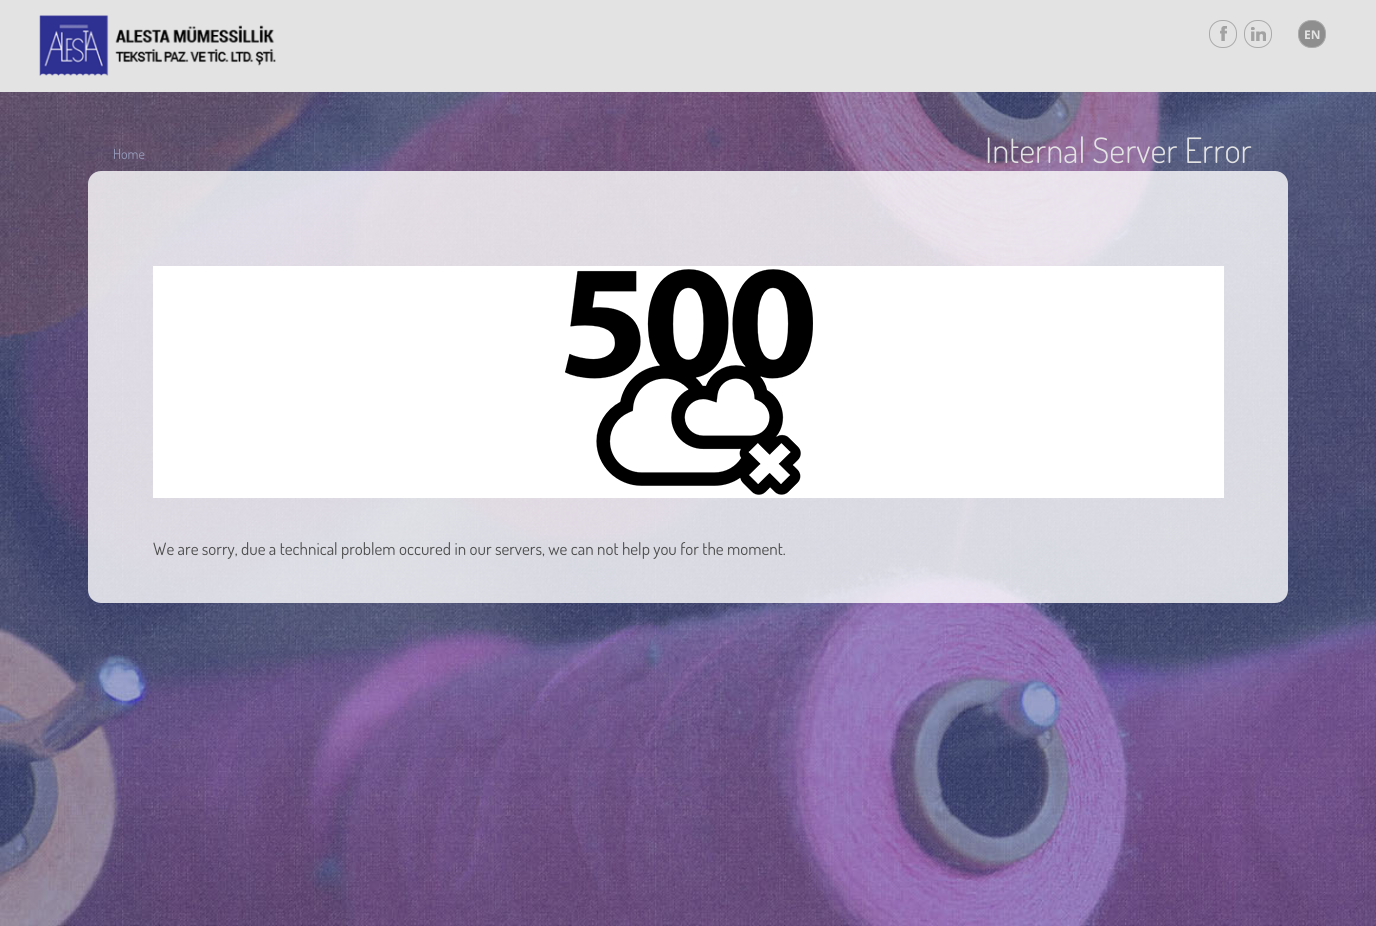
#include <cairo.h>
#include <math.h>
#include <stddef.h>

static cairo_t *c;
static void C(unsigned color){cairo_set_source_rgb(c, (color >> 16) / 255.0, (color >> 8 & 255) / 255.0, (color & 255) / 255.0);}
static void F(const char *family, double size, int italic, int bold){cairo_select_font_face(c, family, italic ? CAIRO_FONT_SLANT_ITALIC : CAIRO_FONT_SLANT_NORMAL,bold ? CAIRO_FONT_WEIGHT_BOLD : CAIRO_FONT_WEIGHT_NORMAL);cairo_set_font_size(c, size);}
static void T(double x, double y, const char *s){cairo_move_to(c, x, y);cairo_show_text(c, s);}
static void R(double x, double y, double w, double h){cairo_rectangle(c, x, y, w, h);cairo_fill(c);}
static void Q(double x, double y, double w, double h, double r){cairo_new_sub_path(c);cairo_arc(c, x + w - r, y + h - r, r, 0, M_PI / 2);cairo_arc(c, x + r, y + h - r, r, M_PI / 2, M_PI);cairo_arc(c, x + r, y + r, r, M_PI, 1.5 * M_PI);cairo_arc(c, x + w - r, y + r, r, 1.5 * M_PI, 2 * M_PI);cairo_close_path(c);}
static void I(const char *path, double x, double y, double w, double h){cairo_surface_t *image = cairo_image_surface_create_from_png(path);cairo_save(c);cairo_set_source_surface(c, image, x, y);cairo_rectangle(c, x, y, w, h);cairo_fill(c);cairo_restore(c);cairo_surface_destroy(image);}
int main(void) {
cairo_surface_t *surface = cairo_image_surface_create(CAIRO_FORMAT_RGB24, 1376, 926);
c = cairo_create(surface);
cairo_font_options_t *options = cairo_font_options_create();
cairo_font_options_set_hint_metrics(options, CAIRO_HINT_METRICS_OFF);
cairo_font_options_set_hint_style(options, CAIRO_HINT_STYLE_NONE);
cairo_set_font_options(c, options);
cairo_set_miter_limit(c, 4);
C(0xffffff);
cairo_paint(c);
C(0xe3e3e3);
R(0,0,1376,92);
I("1.png",39,15,237,61);
I("2.png",1220,26,7,15);
Q(1209.5,20.5,27,27,12.5);
C(0xaaaaaa);
cairo_set_line_width(c,1);
cairo_stroke(c);
I("3.png",1251,27,15,14);
Q(1244.5,20.5,27,27,12.5);
cairo_stroke(c);
C(0x8e8e8e);
Q(1298.5,20.5,27,27,12.5);
cairo_fill_preserve(c);
C(0xaaaaaa);
cairo_stroke(c);
F("Open Sans",12,0,1);
C(0xe3e3e3);
T(1304,39,"EN");
I("4.png",0,92,1376,834);
F("Dosis",14,0,0);
C(0x969bbb);
T(113,159,"Home");
F("Dosis Light",35,0,0);
C(0xe3e3e3);
T(985,163,"Internal Server Error");
cairo_set_source_rgba(c,1,1,1,0.8);
Q(88,171,1200,432,13);
cairo_fill(c);
I("5.png",153,266,1071,232);
F("Dosis",17,0,0);
C(0x4d4d4d);
T(153,555,"We are sorry, due a technical problem occured in our servers, we can not help you for the moment.");
cairo_surface_write_to_png(surface, "o.png");
cairo_font_options_destroy(options);
cairo_destroy(c);
cairo_surface_destroy(surface);
return 0;
}
